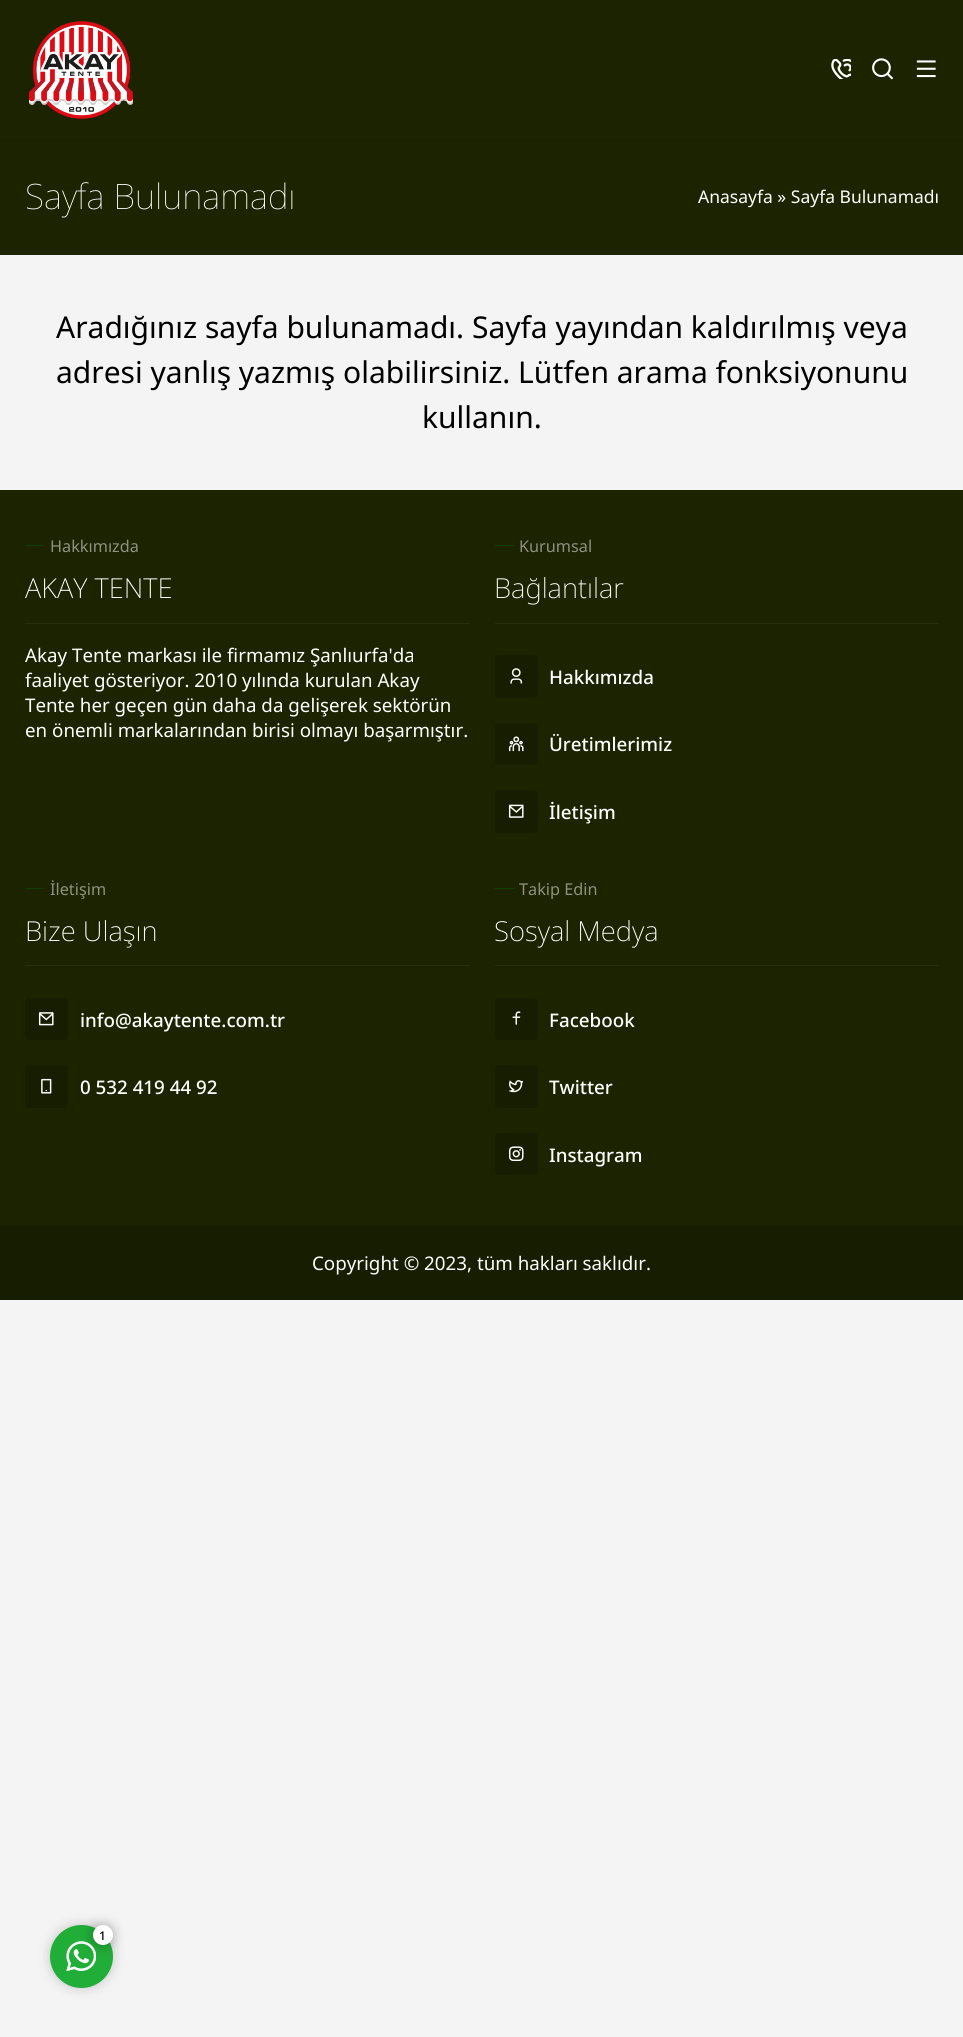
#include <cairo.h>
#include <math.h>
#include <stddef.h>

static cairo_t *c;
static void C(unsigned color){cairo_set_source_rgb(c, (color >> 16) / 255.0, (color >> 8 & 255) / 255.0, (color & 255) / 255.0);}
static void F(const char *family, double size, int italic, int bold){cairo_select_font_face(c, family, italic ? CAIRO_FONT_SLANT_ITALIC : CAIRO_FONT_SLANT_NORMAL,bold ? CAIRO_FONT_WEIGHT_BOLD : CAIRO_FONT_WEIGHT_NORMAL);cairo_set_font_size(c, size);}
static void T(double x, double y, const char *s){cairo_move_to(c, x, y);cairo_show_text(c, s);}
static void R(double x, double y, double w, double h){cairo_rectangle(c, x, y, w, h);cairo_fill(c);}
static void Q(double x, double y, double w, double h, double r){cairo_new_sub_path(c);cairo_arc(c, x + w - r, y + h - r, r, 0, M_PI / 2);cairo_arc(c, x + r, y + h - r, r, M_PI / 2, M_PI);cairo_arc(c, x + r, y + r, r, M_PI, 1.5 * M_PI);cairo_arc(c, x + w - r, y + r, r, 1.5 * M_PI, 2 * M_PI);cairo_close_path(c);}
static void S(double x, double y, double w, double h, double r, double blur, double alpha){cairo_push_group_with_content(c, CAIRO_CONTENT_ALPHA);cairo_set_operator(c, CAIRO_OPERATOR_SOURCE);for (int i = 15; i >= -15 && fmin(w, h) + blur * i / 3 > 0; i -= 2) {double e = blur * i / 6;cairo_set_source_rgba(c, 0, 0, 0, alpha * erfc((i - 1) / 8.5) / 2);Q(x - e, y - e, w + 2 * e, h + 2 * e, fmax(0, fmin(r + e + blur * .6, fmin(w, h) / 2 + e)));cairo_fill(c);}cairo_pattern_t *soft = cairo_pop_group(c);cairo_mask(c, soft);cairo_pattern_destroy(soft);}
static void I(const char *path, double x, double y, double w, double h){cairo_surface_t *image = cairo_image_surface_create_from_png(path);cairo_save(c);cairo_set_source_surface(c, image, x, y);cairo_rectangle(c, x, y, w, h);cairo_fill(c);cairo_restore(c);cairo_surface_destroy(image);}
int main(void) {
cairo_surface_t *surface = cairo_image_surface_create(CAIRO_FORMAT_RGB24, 963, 2037);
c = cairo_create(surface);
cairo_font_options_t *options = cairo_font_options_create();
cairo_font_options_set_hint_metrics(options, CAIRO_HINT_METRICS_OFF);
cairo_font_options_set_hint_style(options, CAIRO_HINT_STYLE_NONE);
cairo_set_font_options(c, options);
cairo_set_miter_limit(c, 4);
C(0xf4f4f4);
cairo_paint(c);
C(0x1c2300);
R(0,0,963,255);
I("1.png",29,21,104,98);
I("2.png",831,59,20,20);
I("3.png",872,58,22,22);
I("4.png",916,60,20,18);
C(0x1a2700);
R(0,136,963,1);
F("Noto Sans Thin",35,0,0);
C(0xffffff);
T(25,209,"Sayfa Bulunamadı");
F("Noto Sans",17.5,0,0);
T(698,203,"Anasayfa » Sayfa Bulunamadı");
F("Noto Sans",30,0,0);
C(0x000000);
T(56,338,"Aradığınız sayfa bulunamadı. Sayfa yayından kaldırılmış veya");
T(56,383,"adresi yanlış yazmış olabilirsiniz. Lütfen arama fonksiyonunu");
T(422,428,"kullanın.");
C(0x1c2300);
R(0,490,963,735);
C(0x272e0d);
R(25,623,445,1);
C(0x103e00);
R(25,545,19,1);
F("Noto Sans",16.25,0,0);
C(0x8e9180);
T(50,552,"Hakkımızda");
F("Noto Sans ExtraLight",27.5,0,0);
C(0xffffff);
T(25,598,"AKAY TENTE");
F("Noto Sans",18.75,0,0);
T(25,662,"Akay Tente markası ile firmamız Şanlıurfa'da");
T(25,687,"faaliyet gösteriyor. 2010 yılında kurulan Akay");
T(25,712,"Tente her geçen gün daha da gelişerek sektörün");
T(25,737,"en önemli markalarından birisi olmayı başarmıştır.");
C(0x272e0d);
R(495,623,444,1);
C(0x103e00);
R(495,545,19,1);
F("Noto Sans",16.25,0,0);
C(0x8e9180);
T(519,552,"Kurumsal");
F("Noto Sans ExtraLight",27.5,0,0);
C(0xffffff);
T(494,598,"Bağlantılar");
C(0x171d00);
Q(495,655,43,43,4);
cairo_fill(c);
I("5.png",510,668,13,16);
F("Noto Sans Medium",18.75,0,0);
C(0xffffff);
T(549,684,"Hakkımızda");
C(0x171d00);
Q(495,723,43,42,4);
cairo_fill(c);
I("6.png",508,736,16,16);
C(0xffffff);
T(549,751,"Üretimlerimiz");
C(0x171d00);
Q(495,790,43,43,4);
cairo_fill(c);
I("7.png",508,804,16,14);
C(0xffffff);
T(549,819,"İletişim");
C(0x272e0d);
R(25,965,445,1);
C(0x103e00);
R(25,888,19,1);
F("Noto Sans",16.25,0,0);
C(0x8e9180);
T(50,895,"İletişim");
F("Noto Sans ExtraLight",27.5,0,0);
C(0xffffff);
T(25,941,"Bize Ulaşın");
C(0x171d00);
Q(25,998,43,42,4);
cairo_fill(c);
I("8.png",38,1012,16,14);
F("Noto Sans Medium",18.75,0,0);
C(0xffffff);
T(80,1027,"info@akaytente.com.tr");
C(0x171d00);
Q(25,1065,43,43,4);
cairo_fill(c);
I("9.png",41,1078,11,16);
C(0xffffff);
T(80,1094,"0 532 419 44 92");
C(0x272e0d);
R(495,965,444,1);
C(0x103e00);
R(495,888,19,1);
F("Noto Sans",16.25,0,0);
C(0x8e9180);
T(519,895,"Takip Edin");
F("Noto Sans ExtraLight",27.5,0,0);
C(0xffffff);
T(494,941,"Sosyal Medya");
C(0x171d00);
Q(495,998,43,42,4);
cairo_fill(c);
I("10.png",512,1011,9,14);
F("Noto Sans Medium",18.75,0,0);
C(0xffffff);
T(549,1027,"Facebook");
C(0x171d00);
Q(495,1065,43,43,4);
cairo_fill(c);
I("11.png",508,1080,16,13);
C(0xffffff);
T(549,1094,"Twitter");
C(0x171d00);
Q(495,1133,43,42,4);
cairo_fill(c);
I("12.png",508,1146,16,16);
C(0xffffff);
T(549,1162,"Instagram");
C(0x171d00);
R(0,1225,963,75);
F("Noto Sans",18.75,0,0);
C(0xffffff);
T(312,1270,"Copyright © 2023, tüm hakları saklıdır.");
C(0x000000);
S(50,1925,63,63,31.5,6,.2);
C(0x20ad38);
cairo_arc(c,81.5,1956.5,31.5,0,2 * M_PI);
cairo_fill(c);
I("13.png",66,1941,30,30);
C(0x000000);
S(93,1925,20,20,10,6,.28);
C(0xffffff);
cairo_arc(c,103,1935,10,0,2 * M_PI);
cairo_fill(c);
F("Noto Sans Medium",12,0,0);
C(0x000000);
T(99,1940,"1");
cairo_surface_write_to_png(surface, "o.png");
cairo_font_options_destroy(options);
cairo_destroy(c);
cairo_surface_destroy(surface);
return 0;
}
